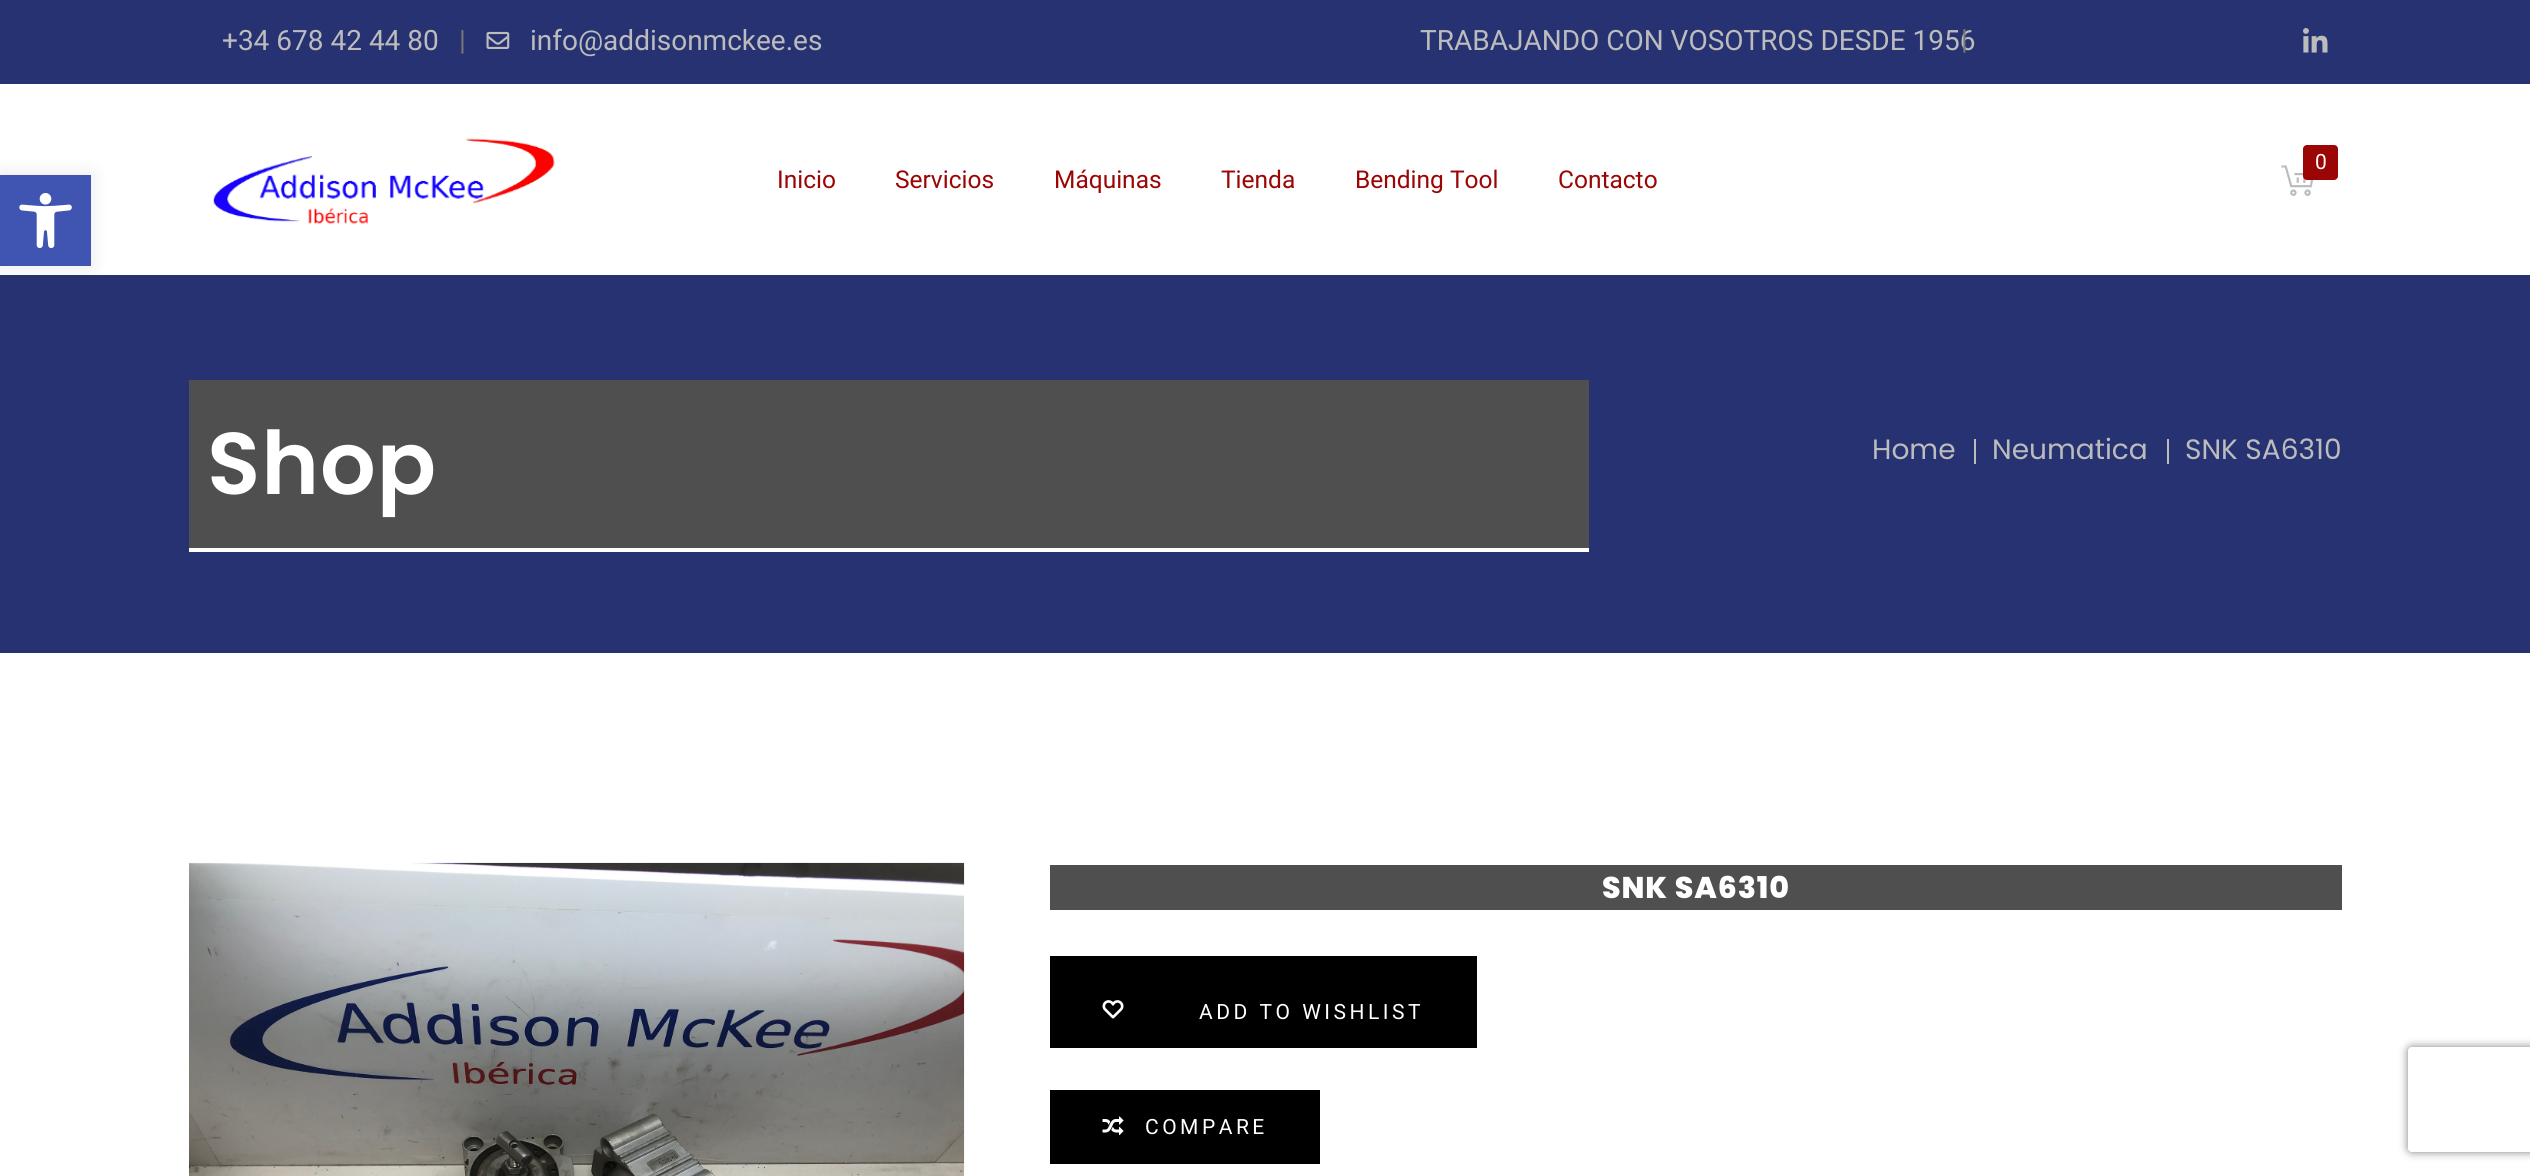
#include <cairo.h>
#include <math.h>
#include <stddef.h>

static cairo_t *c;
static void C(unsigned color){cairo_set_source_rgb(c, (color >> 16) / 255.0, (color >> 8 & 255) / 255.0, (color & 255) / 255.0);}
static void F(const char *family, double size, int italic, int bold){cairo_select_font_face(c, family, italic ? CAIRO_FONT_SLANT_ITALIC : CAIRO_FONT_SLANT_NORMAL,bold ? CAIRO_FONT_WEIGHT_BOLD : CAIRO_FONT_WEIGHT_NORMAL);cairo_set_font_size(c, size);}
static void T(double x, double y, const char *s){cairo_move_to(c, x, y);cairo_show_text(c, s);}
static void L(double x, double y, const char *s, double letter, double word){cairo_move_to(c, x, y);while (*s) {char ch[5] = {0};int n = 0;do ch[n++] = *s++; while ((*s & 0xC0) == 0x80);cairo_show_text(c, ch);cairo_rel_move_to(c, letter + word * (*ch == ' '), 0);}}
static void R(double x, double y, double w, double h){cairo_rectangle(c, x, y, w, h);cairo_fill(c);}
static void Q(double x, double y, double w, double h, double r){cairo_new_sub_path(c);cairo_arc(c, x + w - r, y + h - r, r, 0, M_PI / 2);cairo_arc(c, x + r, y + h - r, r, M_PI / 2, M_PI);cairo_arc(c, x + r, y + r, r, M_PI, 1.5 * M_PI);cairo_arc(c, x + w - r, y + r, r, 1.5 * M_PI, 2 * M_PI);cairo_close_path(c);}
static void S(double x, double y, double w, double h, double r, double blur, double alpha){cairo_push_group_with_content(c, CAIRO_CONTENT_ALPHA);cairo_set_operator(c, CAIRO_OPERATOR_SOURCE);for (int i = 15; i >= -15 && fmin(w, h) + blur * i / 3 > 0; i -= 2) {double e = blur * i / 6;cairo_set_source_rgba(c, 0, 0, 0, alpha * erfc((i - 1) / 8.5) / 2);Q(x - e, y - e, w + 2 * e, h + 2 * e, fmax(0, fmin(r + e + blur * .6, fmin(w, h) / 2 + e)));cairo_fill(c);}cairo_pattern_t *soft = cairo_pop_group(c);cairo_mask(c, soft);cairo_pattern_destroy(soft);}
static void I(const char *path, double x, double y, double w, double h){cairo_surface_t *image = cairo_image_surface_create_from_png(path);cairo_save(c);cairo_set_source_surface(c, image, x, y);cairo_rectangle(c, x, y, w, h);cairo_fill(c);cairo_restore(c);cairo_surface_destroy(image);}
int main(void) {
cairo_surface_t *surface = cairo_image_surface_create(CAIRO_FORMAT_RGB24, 2530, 1176);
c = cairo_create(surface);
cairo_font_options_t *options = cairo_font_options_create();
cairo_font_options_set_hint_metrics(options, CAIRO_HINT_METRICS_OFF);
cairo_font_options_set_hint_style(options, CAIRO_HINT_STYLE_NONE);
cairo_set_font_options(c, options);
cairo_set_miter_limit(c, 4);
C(0xffffff);
cairo_paint(c);
C(0x273272);
R(0,275,2530,378);
C(0x000000);
S(0,175,91,91,0,9,.1);
C(0x4054b2);
R(0,175,91,91);
I("1.png",19,193,53,56);
C(0x273272);
R(0,0,2530,84);
F("Roboto",28,0,0);
C(0xbcbcbc);
T(222,50,"+34 678 42 44 80");
C(0x777777);
T(459,50,"|");
I("2.png",486,31,24,18);
C(0xbcbcbc);
T(530,50,"info@addisonmckee.es");
T(1420,50,"TRABAJANDO CON VOSOTROS DESDE 1956");
C(0x777777);
T(1961,49,"|");
I("3.png",2303,28,25,25);
I("4.png",213,138,342,86);
I("5.png",2281,165,33,31);
C(0x9b0505);
Q(2303,145,35,35,4);
cairo_fill(c);
F("Roboto",21,0,0);
C(0xffffff);
T(2315,169,"0");
F("Roboto",24.5,0,0);
C(0x9b0505);
T(777,188,"Inicio");
T(895,188,"Servicios");
T(1054,188,"Máquinas");
T(1221,188,"Tienda");
T(1355,188,"Bending Tool");
T(1558,188,"Contacto");
C(0x4f4f4f);
R(189,380,1400,168);
C(0xffffff);
R(189,548,1400,4);
F("Poppins SemiBold",87.5,0,0);
L(207,494,"Shop",.9,0);
F("Poppins",28,0,0);
C(0xbcbcbc);
T(1872,459,"Home");
R(1974,439,2,25);
T(1992,459,"Neumatica");
R(2167,439,2,25);
T(2185,459,"SNK SA6310");
I("6.png",189,862,776,314);
C(0x4f4f4f);
R(1050,865,1292,45);
F("Poppins ExtraBold",30,0,0);
C(0xffffff);
L(1602,898,"SNK SA6310",.9,0);
C(0x000000);
R(1050,956,427,92);
I("7.png",1102,1000,22,19);
F("Roboto",21,0,0);
C(0xffffff);
L(1199,1019,"ADD TO WISHLIST",3.5,0);
C(0x000000);
R(1050,1090,270,74);
I("8.png",1102,1116,22,20);
C(0xffffff);
L(1145,1134,"COMPARE",3.5,0);
cairo_save(c);
cairo_set_fill_rule(c,CAIRO_FILL_RULE_EVEN_ODD);
cairo_new_path(c);
cairo_move_to(c,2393,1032);
cairo_line_to(c,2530,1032);
cairo_line_to(c,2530,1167);
cairo_line_to(c,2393,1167);
cairo_close_path(c);
cairo_move_to(c,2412,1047);
cairo_line_to(c,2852,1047);
cairo_curve_to(c,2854,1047,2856,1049,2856,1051);
cairo_line_to(c,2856,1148);
cairo_curve_to(c,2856,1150,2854,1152,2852,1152);
cairo_line_to(c,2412,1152);
cairo_curve_to(c,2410,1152,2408,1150,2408,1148);
cairo_line_to(c,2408,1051);
cairo_curve_to(c,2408,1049,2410,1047,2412,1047);
cairo_close_path(c);
cairo_clip(c);
C(0x808080);
S(2408,1047,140,105,4,4.5,1);
cairo_restore(c);
cairo_surface_write_to_png(surface, "o.png");
cairo_font_options_destroy(options);
cairo_destroy(c);
cairo_surface_destroy(surface);
return 0;
}
